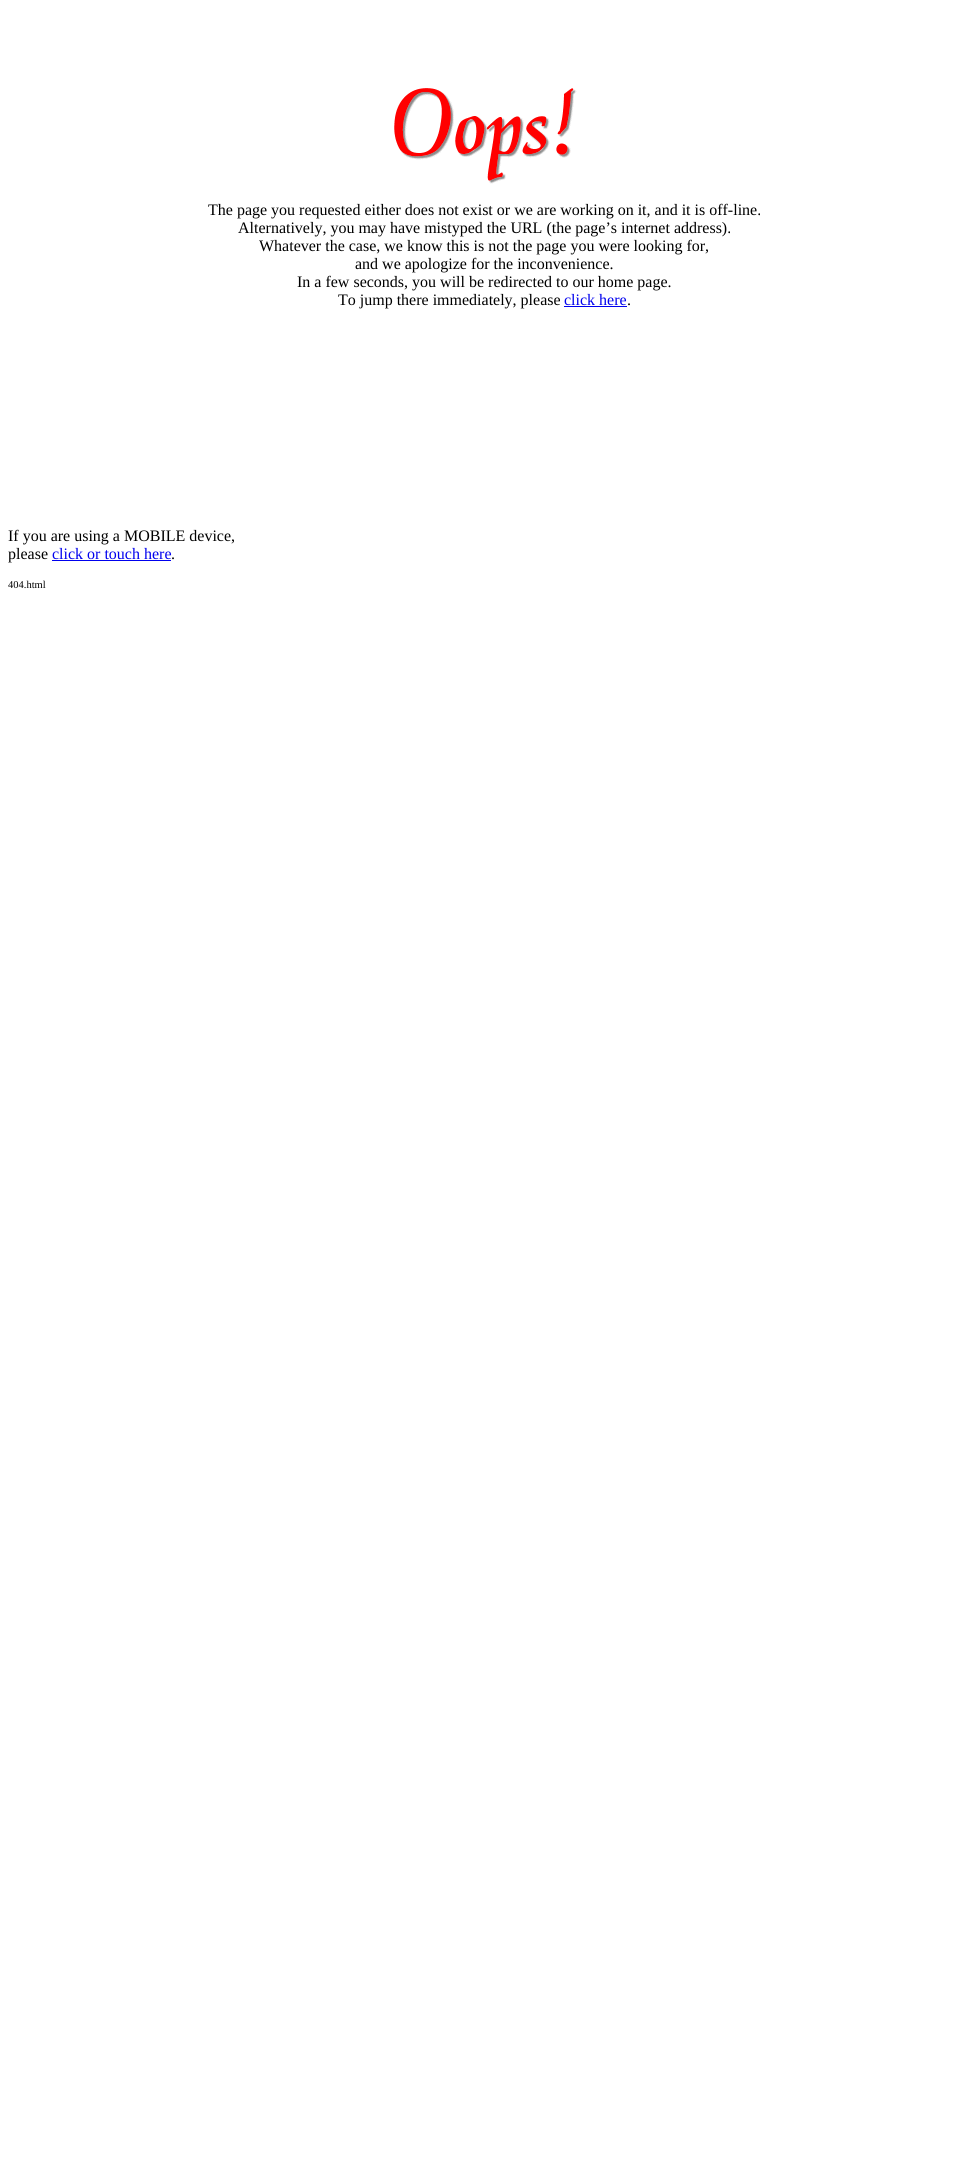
#include <cairo.h>
#include <math.h>
#include <stddef.h>

static cairo_t *c;
static void C(unsigned color){cairo_set_source_rgb(c, (color >> 16) / 255.0, (color >> 8 & 255) / 255.0, (color & 255) / 255.0);}
static void F(const char *family, double size, int italic, int bold){cairo_select_font_face(c, family, italic ? CAIRO_FONT_SLANT_ITALIC : CAIRO_FONT_SLANT_NORMAL,bold ? CAIRO_FONT_WEIGHT_BOLD : CAIRO_FONT_WEIGHT_NORMAL);cairo_set_font_size(c, size);}
static void T(double x, double y, const char *s){cairo_move_to(c, x, y);cairo_show_text(c, s);}
static void R(double x, double y, double w, double h){cairo_rectangle(c, x, y, w, h);cairo_fill(c);}
static void I(const char *path, double x, double y, double w, double h){cairo_surface_t *image = cairo_image_surface_create_from_png(path);cairo_save(c);cairo_set_source_surface(c, image, x, y);cairo_rectangle(c, x, y, w, h);cairo_fill(c);cairo_restore(c);cairo_surface_destroy(image);}
int main(void) {
cairo_surface_t *surface = cairo_image_surface_create(CAIRO_FORMAT_RGB24, 969, 2168);
c = cairo_create(surface);
cairo_font_options_t *options = cairo_font_options_create();
cairo_font_options_set_hint_metrics(options, CAIRO_HINT_METRICS_OFF);
cairo_font_options_set_hint_style(options, CAIRO_HINT_STYLE_NONE);
cairo_set_font_options(c, options);
cairo_set_miter_limit(c, 4);
C(0xffffff);
cairo_paint(c);
I("1.png",394,88,183,96);
F("Liberation Serif",16,0,0);
C(0x000000);
T(208,215,"The page you requested either does not exist or we are working on it, and it is off-line.");
T(238,233,"Alternatively, you may have mistyped the URL (the page’s internet address).");
T(259,251,"Whatever the case, we know this is not the page you were looking for,");
T(355,269,"and we apologize for the inconvenience.");
T(297,287,"In a few seconds, you will be redirected to our home page.");
T(338,305,"To jump there immediately, please");
C(0x0000ee);
T(564,305,"click here");
R(564,306,63,1);
C(0x000000);
T(627,305,".");
T(8,541,"If you are using a MOBILE device,");
T(8,559,"please");
C(0x0000ee);
T(52,559,"click or touch here");
R(52,560,119,1);
C(0x000000);
T(171,559,".");
F("Liberation Serif",10.5,0,0);
T(8,588,"404.html");
cairo_surface_write_to_png(surface, "o.png");
cairo_font_options_destroy(options);
cairo_destroy(c);
cairo_surface_destroy(surface);
return 0;
}
